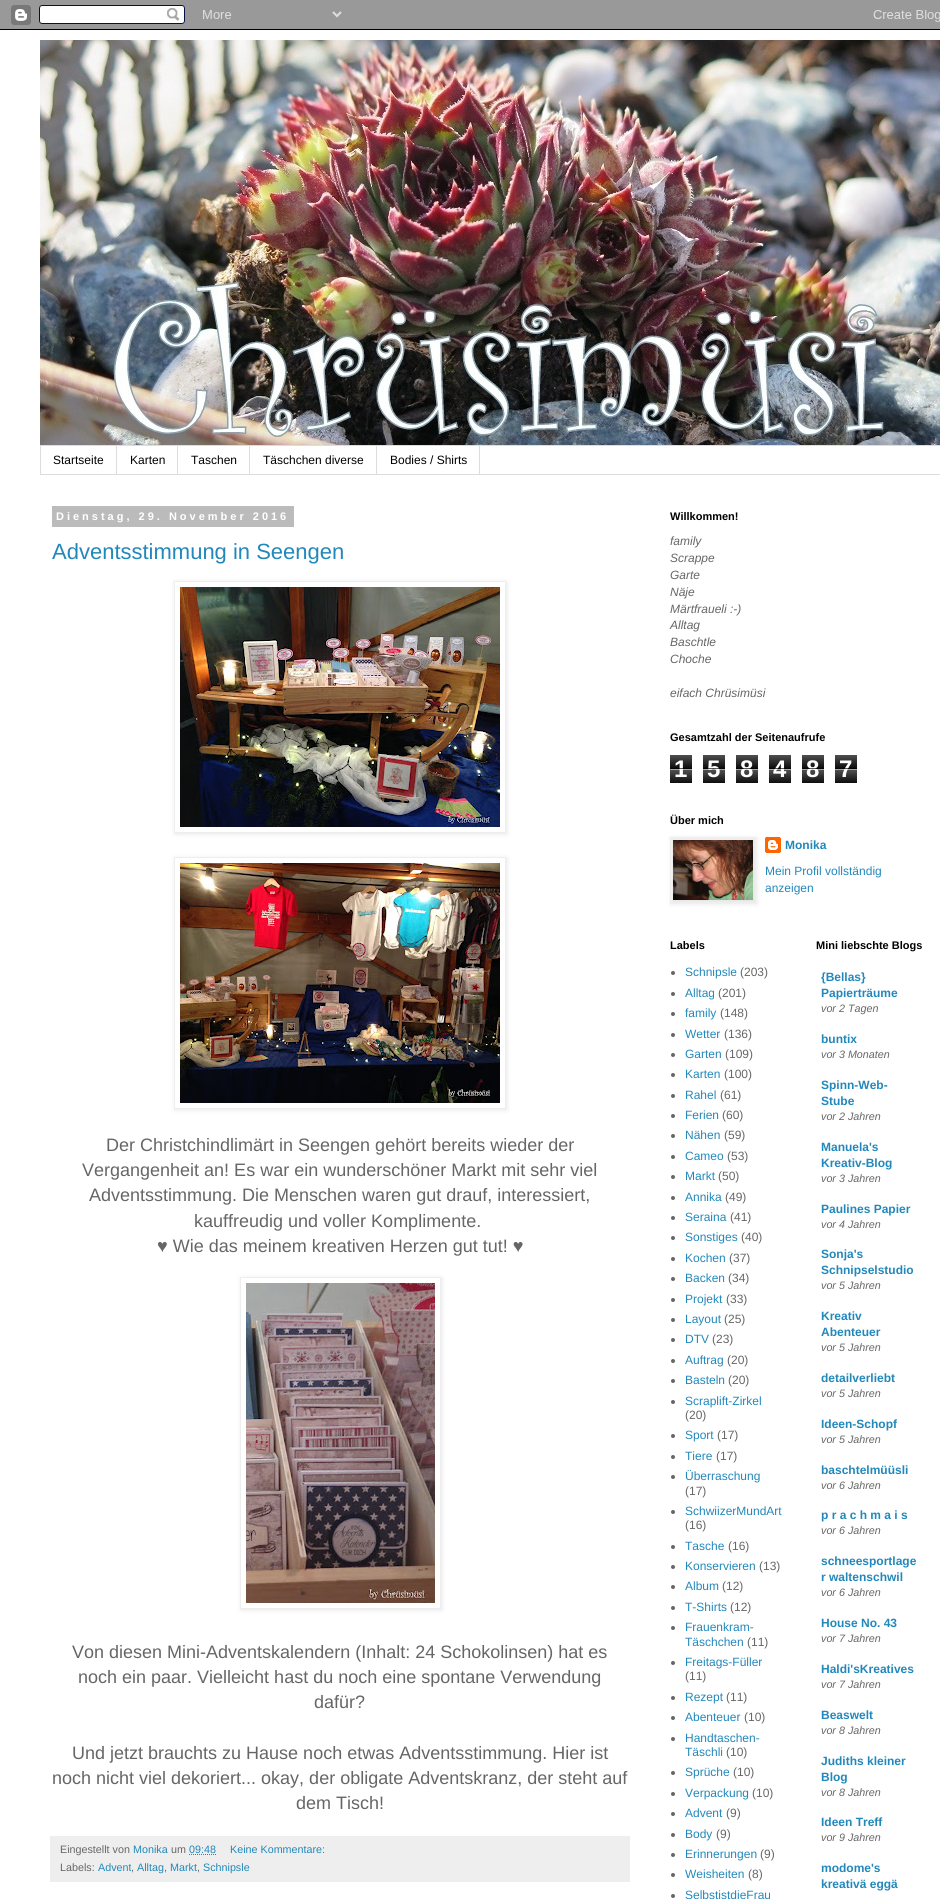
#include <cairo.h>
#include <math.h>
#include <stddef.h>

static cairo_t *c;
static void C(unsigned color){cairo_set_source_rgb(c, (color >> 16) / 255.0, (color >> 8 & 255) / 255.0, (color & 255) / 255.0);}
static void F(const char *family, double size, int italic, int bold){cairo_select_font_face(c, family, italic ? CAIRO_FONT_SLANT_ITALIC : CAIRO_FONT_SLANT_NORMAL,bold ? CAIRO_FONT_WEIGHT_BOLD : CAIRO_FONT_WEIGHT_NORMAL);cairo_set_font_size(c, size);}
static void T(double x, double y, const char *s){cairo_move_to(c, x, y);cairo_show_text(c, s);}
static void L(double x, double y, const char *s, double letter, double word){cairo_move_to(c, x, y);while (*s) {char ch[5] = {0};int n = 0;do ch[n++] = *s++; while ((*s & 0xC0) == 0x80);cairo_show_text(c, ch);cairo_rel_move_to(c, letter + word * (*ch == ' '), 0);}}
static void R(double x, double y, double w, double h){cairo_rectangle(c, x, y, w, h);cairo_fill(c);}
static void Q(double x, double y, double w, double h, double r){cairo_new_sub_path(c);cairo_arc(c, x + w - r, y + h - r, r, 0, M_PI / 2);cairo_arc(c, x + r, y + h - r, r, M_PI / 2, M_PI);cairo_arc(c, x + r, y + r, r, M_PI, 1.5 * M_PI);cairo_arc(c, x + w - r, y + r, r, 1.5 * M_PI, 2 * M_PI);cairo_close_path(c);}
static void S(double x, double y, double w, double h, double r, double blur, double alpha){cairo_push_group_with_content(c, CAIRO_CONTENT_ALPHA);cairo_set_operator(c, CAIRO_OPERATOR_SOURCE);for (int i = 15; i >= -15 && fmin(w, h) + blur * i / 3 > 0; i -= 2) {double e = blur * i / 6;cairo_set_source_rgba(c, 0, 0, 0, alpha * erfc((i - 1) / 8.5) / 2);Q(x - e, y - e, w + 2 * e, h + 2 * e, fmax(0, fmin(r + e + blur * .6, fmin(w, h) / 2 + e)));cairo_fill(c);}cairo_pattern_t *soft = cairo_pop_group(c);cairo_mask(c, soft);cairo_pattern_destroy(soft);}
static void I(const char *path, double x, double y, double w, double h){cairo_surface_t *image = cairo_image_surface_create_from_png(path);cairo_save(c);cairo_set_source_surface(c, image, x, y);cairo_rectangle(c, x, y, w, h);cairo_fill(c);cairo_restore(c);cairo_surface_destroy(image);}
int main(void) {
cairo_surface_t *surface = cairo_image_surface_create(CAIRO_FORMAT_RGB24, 940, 1899);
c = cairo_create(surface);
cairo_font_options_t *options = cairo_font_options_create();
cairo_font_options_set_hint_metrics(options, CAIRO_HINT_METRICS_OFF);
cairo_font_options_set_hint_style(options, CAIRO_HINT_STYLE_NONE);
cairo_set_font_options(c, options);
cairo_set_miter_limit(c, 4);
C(0xffffff);
cairo_paint(c);
I("1.png",0,0,940,30);
I("2.png",40,40,900,405);
cairo_rectangle(c,40.5,445.5,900,29);
C(0xdddddd);
cairo_set_line_width(c,1);
cairo_stroke(c);
R(116,446,1,28);
F("Liberation Sans",12,0,0);
C(0x000000);
T(53,464,"Startseite");
C(0xdddddd);
R(177,446,1,28);
C(0x000000);
T(130,464,"Karten");
C(0xdddddd);
R(249,446,1,28);
C(0x000000);
T(191,464,"Taschen");
C(0xdddddd);
R(376,446,1,28);
C(0x000000);
T(263,464,"Täschchen diverse");
C(0xdddddd);
R(479,446,1,28);
C(0x000000);
T(390,464,"Bodies / Shirts");
C(0xbbbbbb);
R(52,506,242,21);
F("Liberation Sans",11,0,1);
C(0xffffff);
L(56,520,"Dienstag, 29. November 2016",3,0);
F("Liberation Sans",22,0,0);
C(0x2288bb);
T(52,559,"Adventsstimmung in Seengen");
cairo_save(c);
cairo_set_fill_rule(c,CAIRO_FILL_RULE_EVEN_ODD);
cairo_new_path(c);
cairo_move_to(c,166,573);
cairo_line_to(c,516,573);
cairo_line_to(c,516,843);
cairo_line_to(c,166,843);
cairo_close_path(c);
cairo_move_to(c,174,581);
cairo_line_to(c,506,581);
cairo_line_to(c,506,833);
cairo_line_to(c,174,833);
cairo_close_path(c);
cairo_clip(c);
C(0x000000);
S(175,582,332,252,0,2.5,.1);
cairo_restore(c);
cairo_rectangle(c,174.5,581.5,331,251);
C(0xeeeeee);
cairo_stroke(c);
I("3.png",180,587,320,240);
cairo_save(c);
cairo_set_fill_rule(c,CAIRO_FILL_RULE_EVEN_ODD);
cairo_new_path(c);
cairo_move_to(c,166,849);
cairo_line_to(c,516,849);
cairo_line_to(c,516,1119);
cairo_line_to(c,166,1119);
cairo_close_path(c);
cairo_move_to(c,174,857);
cairo_line_to(c,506,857);
cairo_line_to(c,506,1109);
cairo_line_to(c,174,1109);
cairo_close_path(c);
cairo_clip(c);
C(0x000000);
S(175,858,332,252,0,2.5,.1);
cairo_restore(c);
cairo_rectangle(c,174.5,857.5,331,251);
cairo_stroke(c);
I("4.png",180,863,320,240);
F("Liberation Sans",18,0,0);
C(0x666666);
T(106,1151,"Der Christchindlimärt in Seengen gehört bereits wieder der");
T(82,1176,"Vergangenheit an! Es war ein wunderschöner Markt mit sehr viel");
T(89,1201,"Adventsstimmung. Die Menschen waren gut drauf, interessiert,");
T(194,1227,"kauffreudig und voller Komplimente.");
T(157,1252,"♥ Wie das meinem kreativen Herzen gut tut! ♥");
cairo_save(c);
cairo_set_fill_rule(c,CAIRO_FILL_RULE_EVEN_ODD);
cairo_new_path(c);
cairo_move_to(c,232,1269);
cairo_line_to(c,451,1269);
cairo_line_to(c,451,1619);
cairo_line_to(c,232,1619);
cairo_close_path(c);
cairo_move_to(c,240,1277);
cairo_line_to(c,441,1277);
cairo_line_to(c,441,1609);
cairo_line_to(c,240,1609);
cairo_close_path(c);
cairo_clip(c);
C(0x000000);
S(241,1278,201,332,0,2.5,.1);
cairo_restore(c);
cairo_rectangle(c,240.5,1277.5,200,331);
C(0xeeeeee);
cairo_stroke(c);
I("5.png",246,1283,189,320);
C(0x666666);
T(72,1658,"Von diesen Mini-Adventskalendern (Inhalt: 24 Schokolinsen) hat es");
T(78,1683,"noch ein paar. Vielleicht hast du noch eine spontane Verwendung");
T(314,1708,"dafür?");
T(72,1759,"Und jetzt brauchts zu Hause noch etwas Adventsstimmung. Hier ist");
T(52,1784,"noch nicht viel dekoriert... okay, der obligate Adventskranz, der steht auf");
T(296,1809,"dem Tisch!");
C(0xeeeeee);
R(50,1836,580,46);
F("Liberation Sans",10.75,0,0);
C(0x666666);
T(60,1853,"Eingestellt von");
C(0x2288bb);
T(133,1853,"Monika");
C(0x666666);
T(171,1853,"um");
C(0x2288bb);
T(189,1853,"09:48");
cairo_new_path(c);
cairo_move_to(c,189,1854.5);
cairo_line_to(c,216,1854.5);
cairo_set_dash(c,(double[]){1,1},2,0);
cairo_stroke(c);
T(230,1853,"Keine Kommentare:");
C(0x666666);
T(60,1871,"Labels:");
C(0x2288bb);
T(98,1871,"Advent");
C(0x666666);
T(131,1871,",");
C(0x2288bb);
T(137,1871,"Alltag");
C(0x666666);
T(164,1871,",");
C(0x2288bb);
T(170,1871,"Markt");
C(0x666666);
T(197,1871,",");
C(0x2288bb);
T(203,1871,"Schnipsle");
F("Liberation Sans",11,0,1);
C(0x000000);
T(670,520,"Willkommen!");
F("Liberation Sans",12,1,0);
C(0x666666);
T(670,545,"family");
T(670,562,"Scrappe");
T(670,579,"Garte");
T(670,596,"Näje");
T(670,613,"Märtfraueli :-)");
T(670,629,"Alltag");
T(670,646,"Baschtle");
T(670,663,"Choche");
T(670,697,"eifach Chrüsimüsi");
F("Liberation Sans",11,0,1);
C(0x000000);
T(670,741,"Gesamtzahl der Seitenaufrufe");
I("6.png",670,755,22,28);
F("Liberation Sans",24,0,1);
C(0xffffff);
T(674,777,"1");
cairo_set_source_rgba(c,0,0,0,0.65);
R(670,768,22,1);
cairo_set_source_rgba(c,1,1,1,0.65);
R(670,769,22,1);
I("6.png",703,755,22,28);
C(0xffffff);
T(707,777,"5");
cairo_set_source_rgba(c,0,0,0,0.65);
R(703,768,22,1);
cairo_set_source_rgba(c,1,1,1,0.65);
R(703,769,22,1);
I("6.png",736,755,22,28);
C(0xffffff);
T(740,777,"8");
cairo_set_source_rgba(c,0,0,0,0.65);
R(736,768,22,1);
cairo_set_source_rgba(c,1,1,1,0.65);
R(736,769,22,1);
I("6.png",769,755,22,28);
C(0xffffff);
T(773,777,"4");
cairo_set_source_rgba(c,0,0,0,0.65);
R(769,768,22,1);
cairo_set_source_rgba(c,1,1,1,0.65);
R(769,769,22,1);
I("6.png",802,755,22,28);
C(0xffffff);
T(806,777,"8");
cairo_set_source_rgba(c,0,0,0,0.65);
R(802,768,22,1);
cairo_set_source_rgba(c,1,1,1,0.65);
R(802,769,22,1);
I("6.png",835,755,22,28);
C(0xffffff);
T(839,777,"7");
cairo_set_source_rgba(c,0,0,0,0.65);
R(835,768,22,1);
cairo_set_source_rgba(c,1,1,1,0.65);
R(835,769,22,1);
F("Liberation Sans",11,0,1);
C(0x000000);
T(670,824,"Über mich");
I("8.png",765,837,16,16);
C(0x000000);
S(671,838,86,66,0,2.5,.1);
cairo_rectangle(c,670.5,837.5,85,65);
C(0xeeeeee);
cairo_set_dash(c,NULL,0,0);
cairo_stroke(c);
I("7.png",673,840,80,60);
F("Liberation Sans",12,0,1);
C(0x2288bb);
T(785,849,"Monika");
F("Liberation Sans",12,0,0);
T(765,875,"Mein Profil vollständig");
T(765,892,"anzeigen");
F("Liberation Sans",11,0,1);
C(0x000000);
T(670,949,"Labels");
C(0x666666);
cairo_new_path(c);
cairo_arc(c,673,973,2,0,2 * M_PI);
cairo_fill(c);
F("Liberation Sans",12,0,0);
C(0x2288bb);
T(685,976,"Schnipsle");
C(0x666666);
T(740,976,"(203)");
cairo_new_path(c);
cairo_arc(c,673,994,2,0,2 * M_PI);
cairo_fill(c);
C(0x2288bb);
T(685,997,"Alltag");
C(0x666666);
T(718,997,"(201)");
cairo_new_path(c);
cairo_arc(c,673,1014,2,0,2 * M_PI);
cairo_fill(c);
C(0x2288bb);
T(685,1017,"family");
C(0x666666);
T(720,1017,"(148)");
cairo_new_path(c);
cairo_arc(c,673,1035,2,0,2 * M_PI);
cairo_fill(c);
C(0x2288bb);
T(685,1038,"Wetter");
C(0x666666);
T(724,1038,"(136)");
cairo_new_path(c);
cairo_arc(c,673,1055,2,0,2 * M_PI);
cairo_fill(c);
C(0x2288bb);
T(685,1058,"Garten");
C(0x666666);
T(725,1058,"(109)");
cairo_new_path(c);
cairo_arc(c,673,1075,2,0,2 * M_PI);
cairo_fill(c);
C(0x2288bb);
T(685,1078,"Karten");
C(0x666666);
T(724,1078,"(100)");
cairo_new_path(c);
cairo_arc(c,673,1096,2,0,2 * M_PI);
cairo_fill(c);
C(0x2288bb);
T(685,1099,"Rahel");
C(0x666666);
T(720,1099,"(61)");
cairo_new_path(c);
cairo_arc(c,673,1116,2,0,2 * M_PI);
cairo_fill(c);
C(0x2288bb);
T(685,1119,"Ferien");
C(0x666666);
T(722,1119,"(60)");
cairo_new_path(c);
cairo_arc(c,673,1136,2,0,2 * M_PI);
cairo_fill(c);
C(0x2288bb);
T(685,1139,"Nähen");
C(0x666666);
T(724,1139,"(59)");
cairo_new_path(c);
cairo_arc(c,673,1157,2,0,2 * M_PI);
cairo_fill(c);
C(0x2288bb);
T(685,1160,"Cameo");
C(0x666666);
T(727,1160,"(53)");
cairo_new_path(c);
cairo_arc(c,673,1177,2,0,2 * M_PI);
cairo_fill(c);
C(0x2288bb);
T(685,1180,"Markt");
C(0x666666);
T(718,1180,"(50)");
cairo_new_path(c);
cairo_arc(c,673,1198,2,0,2 * M_PI);
cairo_fill(c);
C(0x2288bb);
T(685,1201,"Annika");
C(0x666666);
T(725,1201,"(49)");
cairo_new_path(c);
cairo_arc(c,673,1218,2,0,2 * M_PI);
cairo_fill(c);
C(0x2288bb);
T(685,1221,"Seraina");
C(0x666666);
T(730,1221,"(41)");
cairo_new_path(c);
cairo_arc(c,673,1238,2,0,2 * M_PI);
cairo_fill(c);
C(0x2288bb);
T(685,1241,"Sonstiges");
C(0x666666);
T(741,1241,"(40)");
cairo_new_path(c);
cairo_arc(c,673,1259,2,0,2 * M_PI);
cairo_fill(c);
C(0x2288bb);
T(685,1262,"Kochen");
C(0x666666);
T(729,1262,"(37)");
cairo_new_path(c);
cairo_arc(c,673,1279,2,0,2 * M_PI);
cairo_fill(c);
C(0x2288bb);
T(685,1282,"Backen");
C(0x666666);
T(728,1282,"(34)");
cairo_new_path(c);
cairo_arc(c,673,1300,2,0,2 * M_PI);
cairo_fill(c);
C(0x2288bb);
T(685,1303,"Projekt");
C(0x666666);
T(726,1303,"(33)");
cairo_new_path(c);
cairo_arc(c,673,1320,2,0,2 * M_PI);
cairo_fill(c);
C(0x2288bb);
T(685,1323,"Layout");
C(0x666666);
T(724,1323,"(25)");
cairo_new_path(c);
cairo_arc(c,673,1340,2,0,2 * M_PI);
cairo_fill(c);
C(0x2288bb);
T(685,1343,"DTV");
C(0x666666);
T(712,1343,"(23)");
cairo_new_path(c);
cairo_arc(c,673,1361,2,0,2 * M_PI);
cairo_fill(c);
C(0x2288bb);
T(685,1364,"Auftrag");
C(0x666666);
T(727,1364,"(20)");
cairo_new_path(c);
cairo_arc(c,673,1381,2,0,2 * M_PI);
cairo_fill(c);
C(0x2288bb);
T(685,1384,"Basteln");
C(0x666666);
T(728,1384,"(20)");
cairo_new_path(c);
cairo_arc(c,673,1402,2,0,2 * M_PI);
cairo_fill(c);
C(0x2288bb);
T(685,1405,"Scraplift-Zirkel");
C(0x666666);
T(685,1419,"(20)");
cairo_new_path(c);
cairo_arc(c,673,1436,2,0,2 * M_PI);
cairo_fill(c);
C(0x2288bb);
T(685,1439,"Sport");
C(0x666666);
T(717,1439,"(17)");
cairo_new_path(c);
cairo_arc(c,673,1457,2,0,2 * M_PI);
cairo_fill(c);
C(0x2288bb);
T(685,1460,"Tiere");
C(0x666666);
T(716,1460,"(17)");
cairo_new_path(c);
cairo_arc(c,673,1477,2,0,2 * M_PI);
cairo_fill(c);
C(0x2288bb);
T(685,1480,"Überraschung");
C(0x666666);
T(685,1495,"(17)");
cairo_new_path(c);
cairo_arc(c,673,1512,2,0,2 * M_PI);
cairo_fill(c);
C(0x2288bb);
T(685,1515,"SchwiizerMundArt");
C(0x666666);
T(685,1529,"(16)");
cairo_new_path(c);
cairo_arc(c,673,1547,2,0,2 * M_PI);
cairo_fill(c);
C(0x2288bb);
T(685,1550,"Tasche");
C(0x666666);
T(728,1550,"(16)");
cairo_new_path(c);
cairo_arc(c,673,1567,2,0,2 * M_PI);
cairo_fill(c);
C(0x2288bb);
T(685,1570,"Konservieren");
C(0x666666);
T(759,1570,"(13)");
cairo_new_path(c);
cairo_arc(c,673,1587,2,0,2 * M_PI);
cairo_fill(c);
C(0x2288bb);
T(685,1590,"Album");
C(0x666666);
T(722,1590,"(12)");
cairo_new_path(c);
cairo_arc(c,673,1608,2,0,2 * M_PI);
cairo_fill(c);
C(0x2288bb);
T(685,1611,"T-Shirts");
C(0x666666);
T(730,1611,"(12)");
cairo_new_path(c);
cairo_arc(c,673,1628,2,0,2 * M_PI);
cairo_fill(c);
C(0x2288bb);
T(685,1631,"Frauenkram-");
T(685,1646,"Täschchen");
C(0x666666);
T(747,1646,"(11)");
cairo_new_path(c);
cairo_arc(c,673,1663,2,0,2 * M_PI);
cairo_fill(c);
C(0x2288bb);
T(685,1666,"Freitags-Füller");
C(0x666666);
T(685,1680,"(11)");
cairo_new_path(c);
cairo_arc(c,673,1698,2,0,2 * M_PI);
cairo_fill(c);
C(0x2288bb);
T(685,1701,"Rezept");
C(0x666666);
T(726,1701,"(11)");
cairo_new_path(c);
cairo_arc(c,673,1718,2,0,2 * M_PI);
cairo_fill(c);
C(0x2288bb);
T(685,1721,"Abenteuer");
C(0x666666);
T(744,1721,"(10)");
cairo_new_path(c);
cairo_arc(c,673,1739,2,0,2 * M_PI);
cairo_fill(c);
C(0x2288bb);
T(685,1742,"Handtaschen-");
T(685,1756,"Täschli");
C(0x666666);
T(726,1756,"(10)");
cairo_new_path(c);
cairo_arc(c,673,1773,2,0,2 * M_PI);
cairo_fill(c);
C(0x2288bb);
T(685,1776,"Sprüche");
C(0x666666);
T(733,1776,"(10)");
cairo_new_path(c);
cairo_arc(c,673,1794,2,0,2 * M_PI);
cairo_fill(c);
C(0x2288bb);
T(685,1797,"Verpackung");
C(0x666666);
T(752,1797,"(10)");
cairo_new_path(c);
cairo_arc(c,673,1814,2,0,2 * M_PI);
cairo_fill(c);
C(0x2288bb);
T(685,1817,"Advent");
C(0x666666);
T(726,1817,"(9)");
cairo_new_path(c);
cairo_arc(c,673,1835,2,0,2 * M_PI);
cairo_fill(c);
C(0x2288bb);
T(685,1838,"Body");
C(0x666666);
T(716,1838,"(9)");
cairo_new_path(c);
cairo_arc(c,673,1855,2,0,2 * M_PI);
cairo_fill(c);
C(0x2288bb);
T(685,1858,"Erinnerungen");
C(0x666666);
T(760,1858,"(9)");
cairo_new_path(c);
cairo_arc(c,673,1875,2,0,2 * M_PI);
cairo_fill(c);
C(0x2288bb);
T(685,1878,"Weisheiten");
C(0x666666);
T(748,1878,"(8)");
cairo_new_path(c);
cairo_arc(c,673,1896,2,0,2 * M_PI);
cairo_fill(c);
C(0x2288bb);
T(685,1899,"SelbstistdieFrau");
F("Liberation Sans",11,0,1);
C(0x000000);
T(816,949,"Mini liebschte Blogs");
F("Liberation Sans",12,0,1);
C(0x2288bb);
T(821,981,"{Bellas}");
T(821,997,"Papierträume");
F("Liberation Sans",10.75,1,0);
C(0x666666);
T(821,1012,"vor 2 Tagen");
F("Liberation Sans",12,0,1);
C(0x2288bb);
T(821,1043,"buntix");
F("Liberation Sans",10.75,1,0);
C(0x666666);
T(821,1058,"vor 3 Monaten");
F("Liberation Sans",12,0,1);
C(0x2288bb);
T(821,1089,"Spinn-Web-");
T(821,1105,"Stube");
F("Liberation Sans",10.75,1,0);
C(0x666666);
T(821,1120,"vor 2 Jahren");
F("Liberation Sans",12,0,1);
C(0x2288bb);
T(821,1151,"Manuela's");
T(821,1167,"Kreativ-Blog");
F("Liberation Sans",10.75,1,0);
C(0x666666);
T(821,1182,"vor 3 Jahren");
F("Liberation Sans",12,0,1);
C(0x2288bb);
T(821,1213,"Paulines Papier");
F("Liberation Sans",10.75,1,0);
C(0x666666);
T(821,1228,"vor 4 Jahren");
F("Liberation Sans",12,0,1);
C(0x2288bb);
T(821,1258,"Sonja's");
T(821,1274,"Schnipselstudio");
F("Liberation Sans",10.75,1,0);
C(0x666666);
T(821,1289,"vor 5 Jahren");
F("Liberation Sans",12,0,1);
C(0x2288bb);
T(821,1320,"Kreativ");
T(821,1336,"Abenteuer");
F("Liberation Sans",10.75,1,0);
C(0x666666);
T(821,1351,"vor 5 Jahren");
F("Liberation Sans",12,0,1);
C(0x2288bb);
T(821,1382,"detailverliebt");
F("Liberation Sans",10.75,1,0);
C(0x666666);
T(821,1397,"vor 5 Jahren");
F("Liberation Sans",12,0,1);
C(0x2288bb);
T(821,1428,"Ideen-Schopf");
F("Liberation Sans",10.75,1,0);
C(0x666666);
T(821,1443,"vor 5 Jahren");
F("Liberation Sans",12,0,1);
C(0x2288bb);
T(821,1474,"baschtelmüüsli");
F("Liberation Sans",10.75,1,0);
C(0x666666);
T(821,1489,"vor 6 Jahren");
F("Liberation Sans",12,0,1);
C(0x2288bb);
T(821,1519,"p r a c h m a i s");
F("Liberation Sans",10.75,1,0);
C(0x666666);
T(821,1534,"vor 6 Jahren");
F("Liberation Sans",12,0,1);
C(0x2288bb);
T(821,1565,"schneesportlage");
T(821,1581,"r waltenschwil");
F("Liberation Sans",10.75,1,0);
C(0x666666);
T(821,1596,"vor 6 Jahren");
F("Liberation Sans",12,0,1);
C(0x2288bb);
T(821,1627,"House No. 43");
F("Liberation Sans",10.75,1,0);
C(0x666666);
T(821,1642,"vor 7 Jahren");
F("Liberation Sans",12,0,1);
C(0x2288bb);
T(821,1673,"Haldi'sKreatives");
F("Liberation Sans",10.75,1,0);
C(0x666666);
T(821,1688,"vor 7 Jahren");
F("Liberation Sans",12,0,1);
C(0x2288bb);
T(821,1719,"Beaswelt");
F("Liberation Sans",10.75,1,0);
C(0x666666);
T(821,1734,"vor 8 Jahren");
F("Liberation Sans",12,0,1);
C(0x2288bb);
T(821,1765,"Judiths kleiner");
T(821,1781,"Blog");
F("Liberation Sans",10.75,1,0);
C(0x666666);
T(821,1796,"vor 8 Jahren");
F("Liberation Sans",12,0,1);
C(0x2288bb);
T(821,1826,"Ideen Treff");
F("Liberation Sans",10.75,1,0);
C(0x666666);
T(821,1841,"vor 9 Jahren");
F("Liberation Sans",12,0,1);
C(0x2288bb);
T(821,1872,"modome's");
T(821,1888,"kreativä eggä");
cairo_surface_write_to_png(surface, "o.png");
cairo_font_options_destroy(options);
cairo_destroy(c);
cairo_surface_destroy(surface);
return 0;
}
